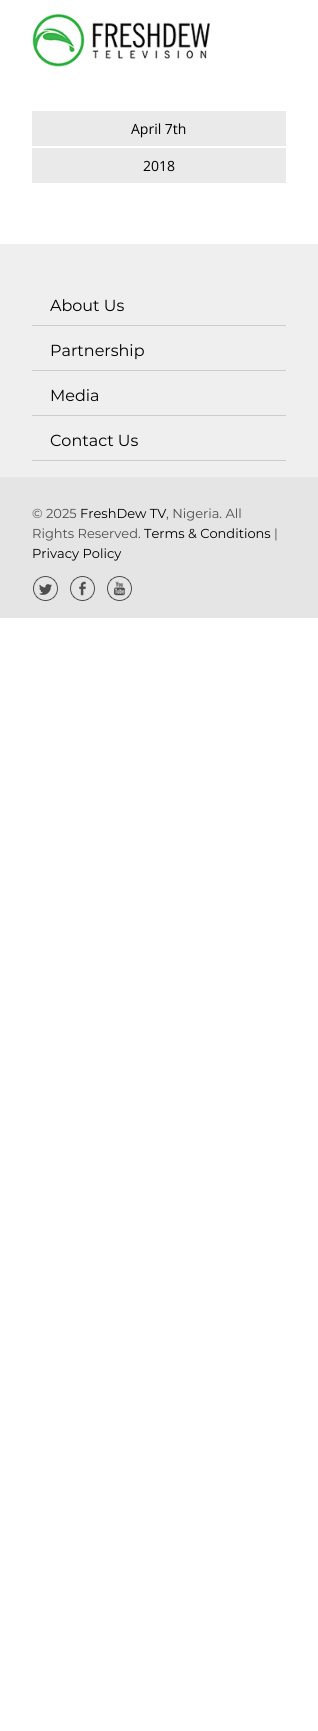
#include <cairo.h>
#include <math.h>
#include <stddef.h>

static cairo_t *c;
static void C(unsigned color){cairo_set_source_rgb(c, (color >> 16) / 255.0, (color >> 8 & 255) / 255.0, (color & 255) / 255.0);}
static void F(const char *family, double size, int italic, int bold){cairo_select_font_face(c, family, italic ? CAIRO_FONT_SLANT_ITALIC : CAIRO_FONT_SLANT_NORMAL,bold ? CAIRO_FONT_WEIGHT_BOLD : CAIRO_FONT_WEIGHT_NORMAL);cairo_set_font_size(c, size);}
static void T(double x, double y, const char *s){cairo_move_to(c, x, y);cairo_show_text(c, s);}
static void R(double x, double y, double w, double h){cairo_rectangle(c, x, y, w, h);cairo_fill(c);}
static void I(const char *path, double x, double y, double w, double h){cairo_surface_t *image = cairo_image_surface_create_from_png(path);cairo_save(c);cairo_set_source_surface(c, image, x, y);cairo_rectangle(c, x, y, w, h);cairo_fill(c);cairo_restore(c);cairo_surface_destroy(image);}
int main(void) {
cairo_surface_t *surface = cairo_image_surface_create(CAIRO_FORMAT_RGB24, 318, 1731);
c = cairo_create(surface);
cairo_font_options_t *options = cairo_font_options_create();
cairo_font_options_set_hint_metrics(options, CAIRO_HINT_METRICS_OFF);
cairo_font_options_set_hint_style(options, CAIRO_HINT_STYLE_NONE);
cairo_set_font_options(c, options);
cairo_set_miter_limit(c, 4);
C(0xffffff);
cairo_paint(c);
I("1.png",32,14,178,53);
C(0xeaeaea);
R(32,111,254,35);
F("Open Sans",14,0,0);
C(0x000000);
T(131,134,"April 7th");
C(0xeaeaea);
R(32,148,254,35);
C(0x000000);
T(143,171,"2018");
C(0xefefef);
R(0,244,318,233);
C(0xcccccc);
R(32,325,254,1);
F("Montserrat Thin",16,0,0);
C(0x000000);
T(50,311,"About Us");
C(0xcccccc);
R(32,370,254,1);
C(0x000000);
T(50,356,"Partnership");
C(0xcccccc);
R(32,415,254,1);
C(0x000000);
T(50,401,"Media");
C(0xcccccc);
R(32,460,254,1);
C(0x000000);
T(50,446,"Contact Us");
C(0xe5e5e5);
R(0,477,318,141);
F("Montserrat Thin",13,0,0);
C(0x4e4e4e);
T(32,518,"© 2025");
C(0x000000);
T(80,518,"FreshDew TV");
C(0x4e4e4e);
T(166,518,", Nigeria. All");
T(32,538,"Rights Reserved.");
C(0x000000);
T(144,538,"Terms & Conditions");
C(0x4e4e4e);
T(274,538,"|");
C(0x000000);
T(32,558,"Privacy Policy");
I("2.png",33,576,25,25);
I("3.png",70,576,25,25);
I("4.png",107,576,25,25);
cairo_surface_write_to_png(surface, "o.png");
cairo_font_options_destroy(options);
cairo_destroy(c);
cairo_surface_destroy(surface);
return 0;
}
